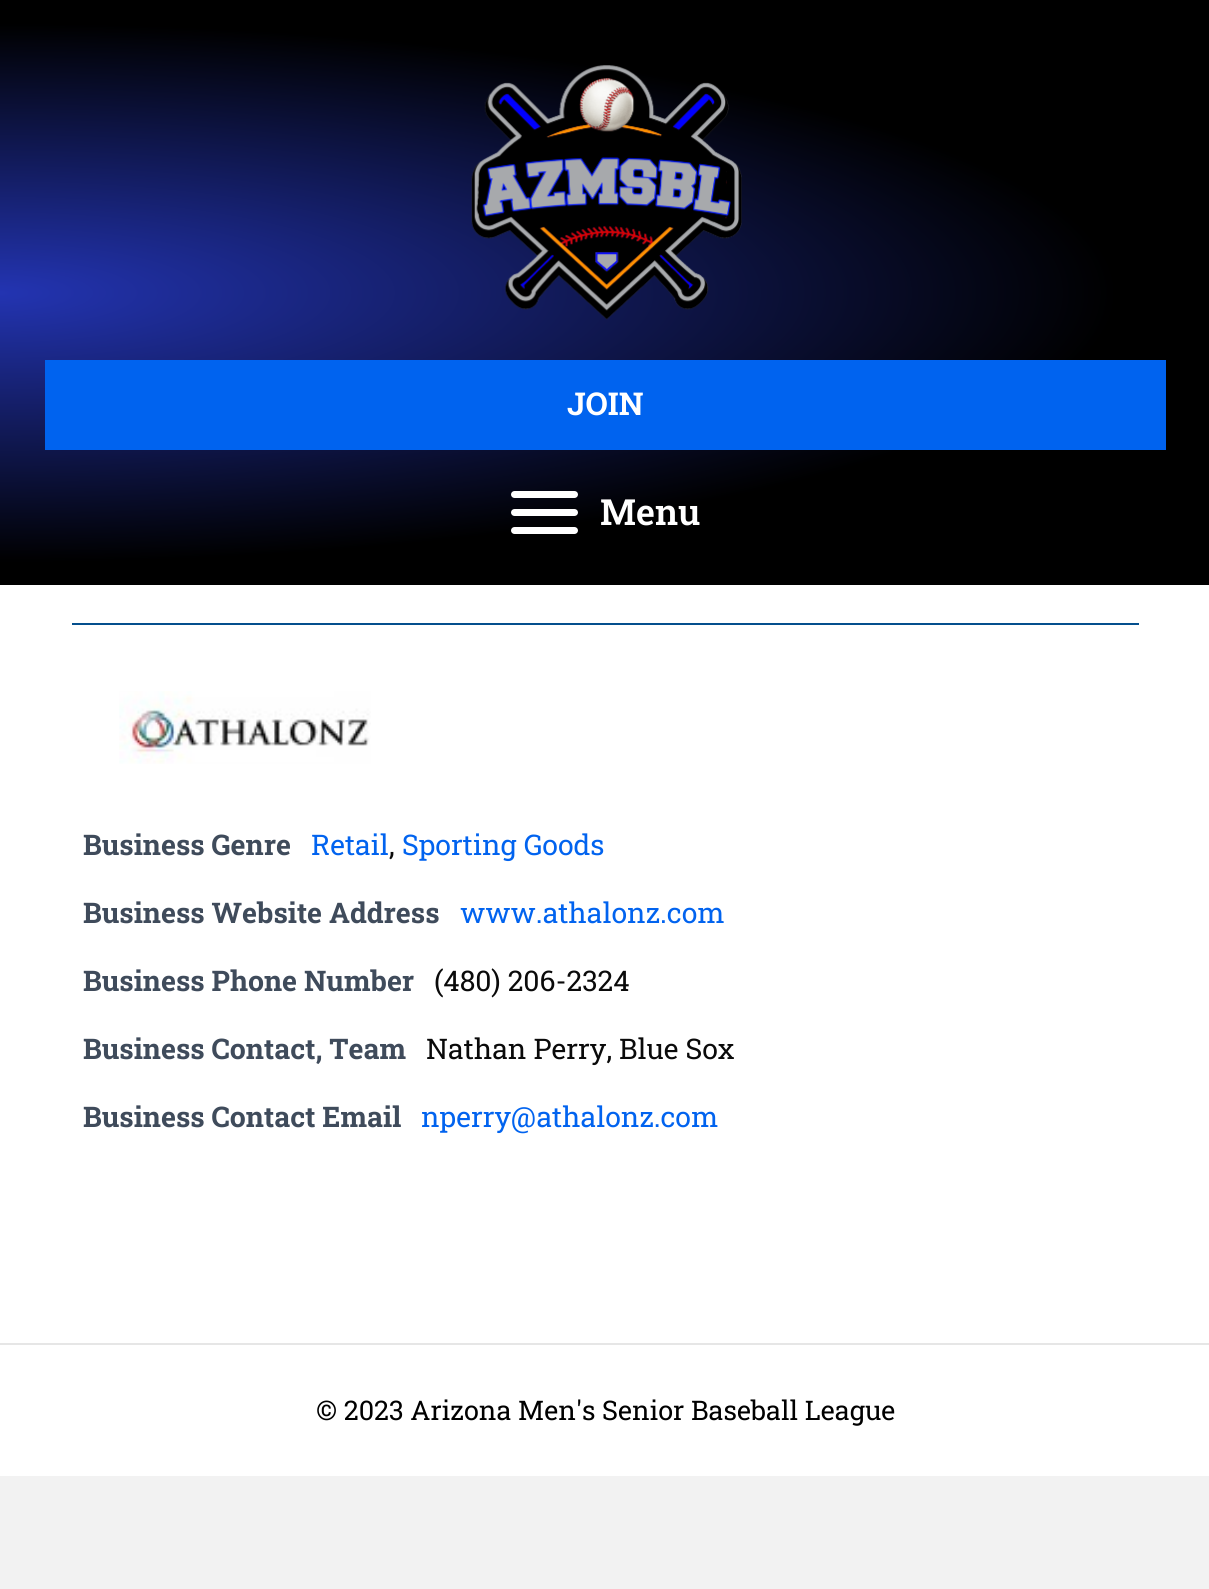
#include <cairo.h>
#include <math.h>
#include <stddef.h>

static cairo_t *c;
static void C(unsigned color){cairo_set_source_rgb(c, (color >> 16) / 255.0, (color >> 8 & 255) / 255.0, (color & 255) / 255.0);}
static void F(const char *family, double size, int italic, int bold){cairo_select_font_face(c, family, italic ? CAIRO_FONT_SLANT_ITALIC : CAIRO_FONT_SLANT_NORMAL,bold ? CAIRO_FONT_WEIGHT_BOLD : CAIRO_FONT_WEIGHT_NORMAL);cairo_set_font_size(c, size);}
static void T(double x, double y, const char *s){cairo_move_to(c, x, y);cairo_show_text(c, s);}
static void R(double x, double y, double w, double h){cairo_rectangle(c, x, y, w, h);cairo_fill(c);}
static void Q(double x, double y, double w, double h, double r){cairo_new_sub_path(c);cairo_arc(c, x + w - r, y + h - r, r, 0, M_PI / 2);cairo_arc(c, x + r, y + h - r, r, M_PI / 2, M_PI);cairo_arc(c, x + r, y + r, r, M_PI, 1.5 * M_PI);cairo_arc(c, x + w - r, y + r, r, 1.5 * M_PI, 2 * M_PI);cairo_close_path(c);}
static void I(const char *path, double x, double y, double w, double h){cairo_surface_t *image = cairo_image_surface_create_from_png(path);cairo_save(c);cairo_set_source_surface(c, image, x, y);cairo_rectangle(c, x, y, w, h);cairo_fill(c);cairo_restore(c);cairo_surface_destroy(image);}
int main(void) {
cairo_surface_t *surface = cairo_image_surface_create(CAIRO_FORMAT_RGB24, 1209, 1589);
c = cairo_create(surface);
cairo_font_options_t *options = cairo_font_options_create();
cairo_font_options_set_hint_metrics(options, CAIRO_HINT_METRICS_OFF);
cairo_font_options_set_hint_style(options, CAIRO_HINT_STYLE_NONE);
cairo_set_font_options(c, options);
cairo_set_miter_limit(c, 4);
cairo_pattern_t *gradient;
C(0xf2f2f2);
cairo_paint(c);
gradient = cairo_pattern_create_radial(0,0,0,0,0,1);
cairo_pattern_set_matrix(gradient, &(cairo_matrix_t){1.0 / 1712, 0, 0, 1.0 / 414, -1.0 * 0 / 1712, -1.0 * 293 / 414});
cairo_pattern_add_color_stop_rgba(gradient,0,0.137,0.204,0.698,1);
cairo_pattern_add_color_stop_rgba(gradient,.65,0,0,0,1);
cairo_set_source(c,gradient);
cairo_pattern_destroy(gradient);
R(0,0,1209,585);
I("1.png",471,65,271,255);
C(0x0063ef);
R(45,360,1121,90);
F("Roboto Slab",31.5,0,1);
C(0xffffff);
T(567,415,"JOIN");
Q(511,509,67,7,3.5);
cairo_fill(c);
Q(511,491,67,7,3.5);
cairo_fill(c);
Q(511,527,67,7,3.5);
cairo_fill(c);
F("Roboto Slab SemiBold",36,0,0);
T(600,525,"Menu");
R(0,585,1209,758);
C(0x044f8d);
R(72,623,1067,2);
I("2.png",119,691,252,73);
F("Roboto Slab",28.4,0,1);
C(0x3f4b5b);
T(83,855,"Business Genre");
F("Roboto Slab",28.4,0,0);
C(0x0163ef);
T(311,855,"Retail");
C(0x0a0a0a);
T(389,855,",");
C(0x0163ef);
T(402,855,"Sporting Goods");
F("Roboto Slab",28.4,0,1);
C(0x3f4b5b);
T(83,923,"Business Website Address");
F("Roboto Slab",28.4,0,0);
C(0x0163ef);
T(460,923,"www.athalonz.com");
F("Roboto Slab",28.4,0,1);
C(0x3f4b5b);
T(83,991,"Business Phone Number");
F("Roboto Slab",28.4,0,0);
C(0x0a0a0a);
T(434,991,"(480) 206-2324");
F("Roboto Slab",28.4,0,1);
C(0x3f4b5b);
T(83,1059,"Business Contact, Team");
F("Roboto Slab",28.4,0,0);
C(0x0a0a0a);
T(426,1059,"Nathan Perry, Blue Sox");
F("Roboto Slab",28.4,0,1);
C(0x3f4b5b);
T(83,1127,"Business Contact Email");
F("Roboto Slab",28.4,0,0);
C(0x0163ef);
T(421,1127,"nperry@athalonz.com");
C(0xffffff);
R(0,1345,1209,131);
C(0xe6e6e6);
R(0,1343,1209,2);
F("Roboto Slab",27,0,0);
C(0x000000);
T(316,1420,"© 2023 Arizona Men's Senior Baseball League");
cairo_surface_write_to_png(surface, "o.png");
cairo_font_options_destroy(options);
cairo_destroy(c);
cairo_surface_destroy(surface);
return 0;
}
